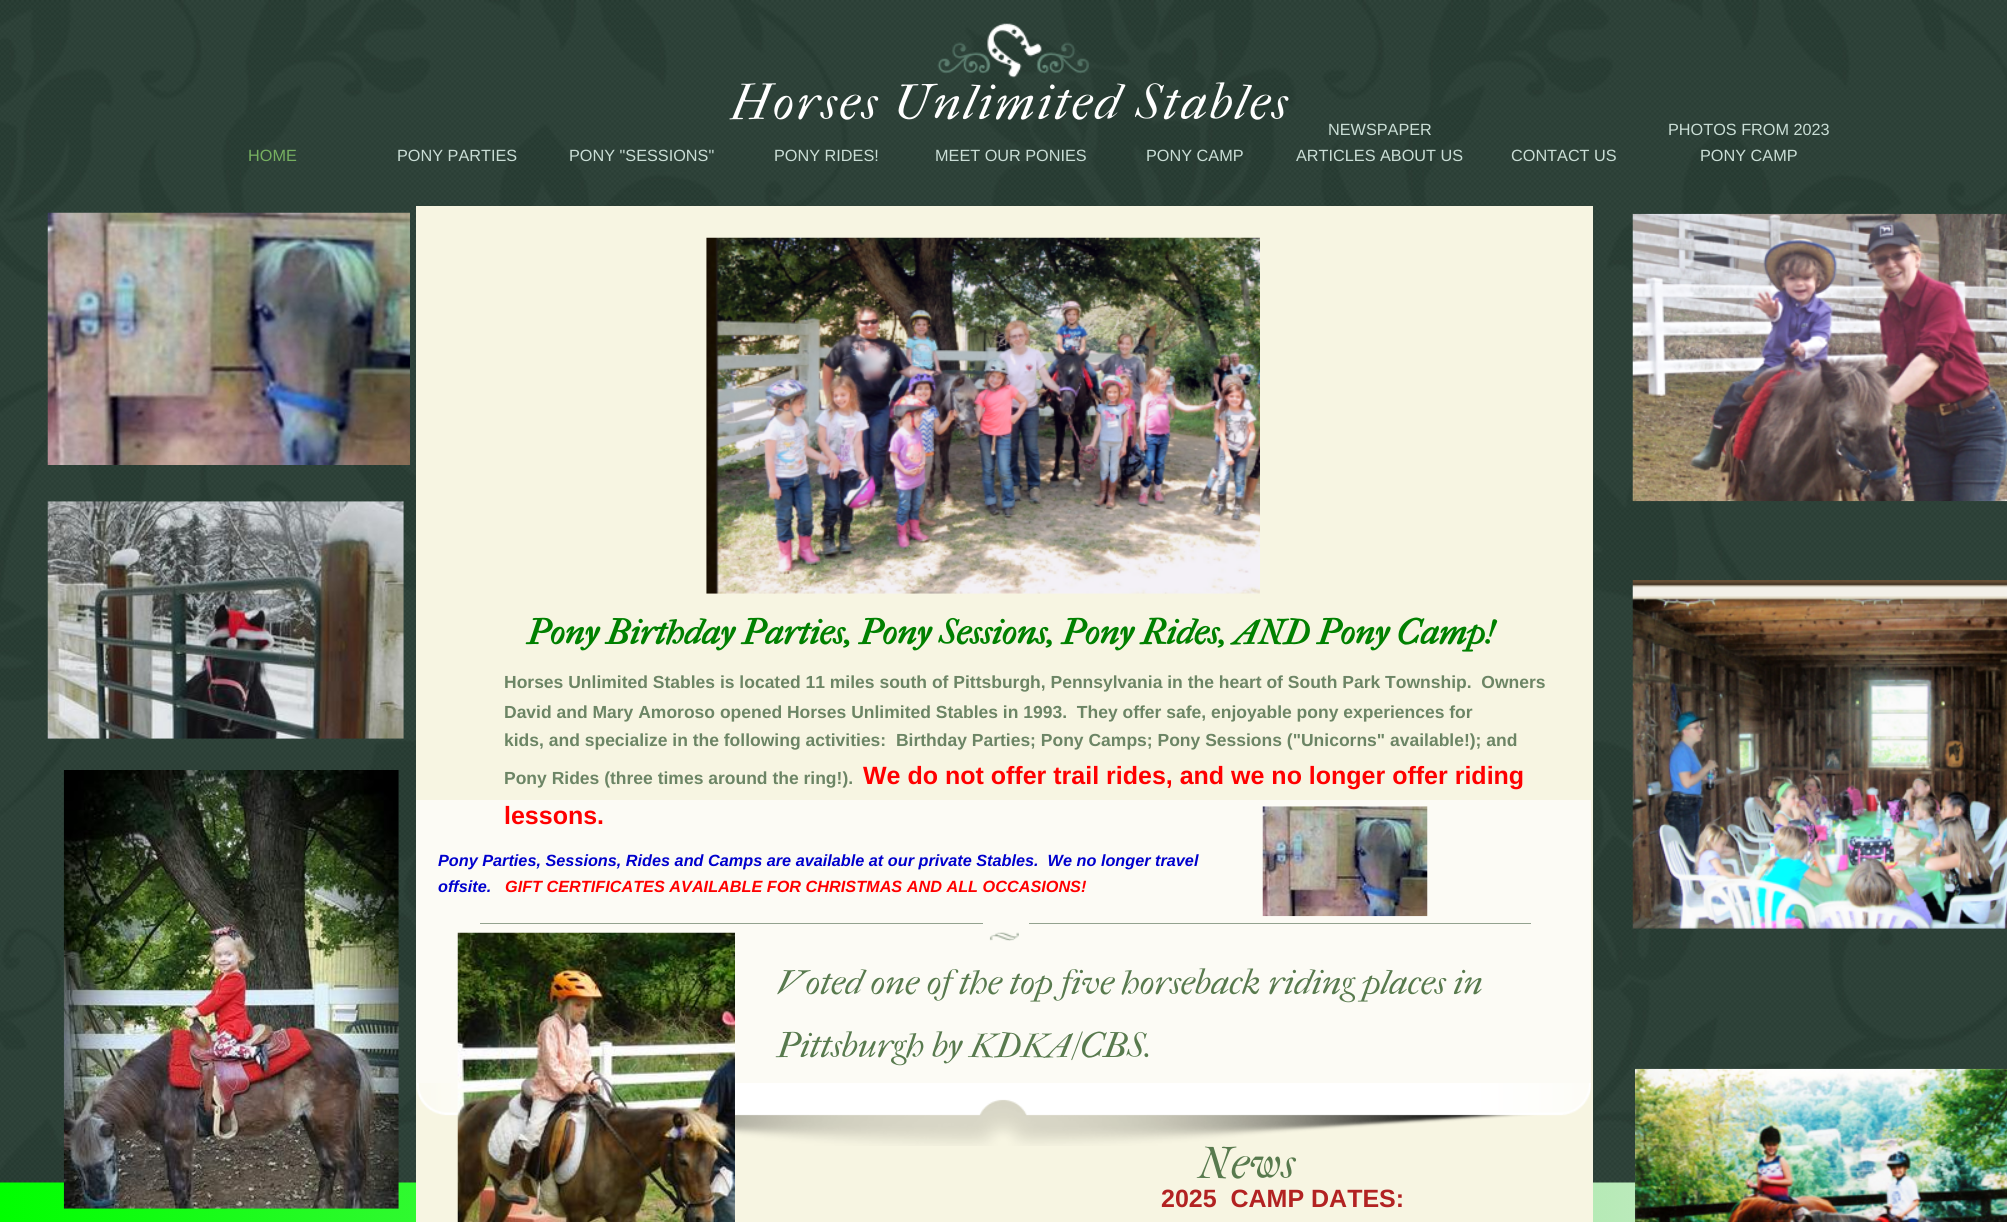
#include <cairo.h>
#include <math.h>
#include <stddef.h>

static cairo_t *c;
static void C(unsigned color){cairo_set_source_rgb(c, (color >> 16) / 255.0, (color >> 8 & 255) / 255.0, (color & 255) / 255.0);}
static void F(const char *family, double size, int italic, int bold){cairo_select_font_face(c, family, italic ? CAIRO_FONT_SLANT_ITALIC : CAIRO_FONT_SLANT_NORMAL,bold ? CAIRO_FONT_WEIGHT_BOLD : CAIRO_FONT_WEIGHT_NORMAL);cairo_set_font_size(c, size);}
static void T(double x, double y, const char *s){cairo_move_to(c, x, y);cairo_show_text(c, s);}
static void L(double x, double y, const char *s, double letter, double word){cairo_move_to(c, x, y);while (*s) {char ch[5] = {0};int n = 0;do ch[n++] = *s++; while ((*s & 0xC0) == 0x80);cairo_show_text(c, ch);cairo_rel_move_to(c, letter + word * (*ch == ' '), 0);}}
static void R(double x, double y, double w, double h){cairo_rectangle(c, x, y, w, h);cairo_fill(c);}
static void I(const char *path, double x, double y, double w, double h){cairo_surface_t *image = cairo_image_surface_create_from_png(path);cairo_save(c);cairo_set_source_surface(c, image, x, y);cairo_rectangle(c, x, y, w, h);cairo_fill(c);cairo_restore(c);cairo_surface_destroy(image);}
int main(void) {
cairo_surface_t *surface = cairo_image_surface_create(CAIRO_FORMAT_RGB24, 2007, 1222);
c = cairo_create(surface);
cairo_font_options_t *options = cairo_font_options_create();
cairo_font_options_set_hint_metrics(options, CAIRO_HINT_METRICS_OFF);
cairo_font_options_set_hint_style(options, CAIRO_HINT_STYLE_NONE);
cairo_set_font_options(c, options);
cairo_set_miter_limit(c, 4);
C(0xffffff);
cairo_paint(c);
I("1.png",0,0,2007,1222);
C(0xf7f5e2);
R(416,206,1177,1016);
I("2.png",937,23,152,55);
F("IM FELL French Canon",50,1,0);
C(0xffffff);
L(731,119,"Horses Unlimited Stables",2.5,0);
F("Liberation Sans",16.25,0,0);
C(0x76b060);
T(248,161,"HOME");
C(0xcaded6);
T(397,161,"PONY PARTIES");
T(569,161,"PONY \"SESSIONS\"");
T(774,161,"PONY RIDES!");
T(935,161,"MEET OUR PONIES");
T(1146,161,"PONY CAMP");
T(1328,135,"NEWSPAPER");
T(1296,161,"ARTICLES ABOUT US");
T(1511,161,"CONTACT US");
T(1668,135,"PHOTOS FROM 2023");
T(1700,161,"PONY CAMP");
I("3.png",47,212,363,253);
I("4.png",706,237,554,357);
I("5.png",1632,213,375,289);
I("6.png",47,501,357,238);
F("IM FELL French Canon",35,1,1);
C(0x008000);
T(527,644,"Pony Birthday Parties, Pony Sessions, Pony Rides, AND Pony Camp!");
I("7.png",1632,580,375,349);
F("Liberation Sans",17.5,0,1);
C(0x6c8565);
T(504,688,"Horses Unlimited Stables is located 11 miles south of Pittsburgh, Pennsylvania in the heart of South Park Township.  Owners");
T(504,718,"David and Mary Amoroso opened Horses Unlimited Stables in 1993.  They offer safe, enjoyable pony experiences for");
T(504,746,"kids, and specialize in the following activities:  Birthday Parties; Pony Camps; Pony Sessions (\"Unicorns\" available!); and");
T(504,784,"Pony Rides (three times around the ring!).");
F("Liberation Sans",25,0,1);
C(0xff0000);
T(863,784,"We do not offer trail rides, and we no longer offer riding");
C(0xfcfbf5);
R(416,800,1175,283);
C(0xff0000);
T(504,824,"lessons.");
I("8.png",63,770,336,439);
F("Liberation Sans",16.25,1,1);
C(0x0000cd);
T(438,866,"Pony Parties, Sessions, Rides and Camps are available at our private Stables.  We no longer travel");
T(438,892,"offsite.");
C(0xff0000);
T(505,892,"GIFT CERTIFICATES AVAILABLE FOR CHRISTMAS AND ALL OCCASIONS!");
I("9.png",1262,806,166,111);
C(0x93a28f);
R(480,923,503,1);
R(1029,923,502,1);
I("12.png",416,1083,1175,63);
I("10.png",457,932,278,290);
I("11.png",989,932,30,9);
F("IM FELL French Canon",35,1,0);
C(0x587a4e);
T(777,994,"Voted one of the top five horseback riding places in");
T(777,1057,"Pittsburgh by KDKA/CBS.");
I("13.png",1635,1068,372,154);
F("IM FELL French Canon",45,1,0);
T(1198,1178,"News");
F("Liberation Sans",25,0,1);
C(0xb22222);
T(1161,1207,"2025  CAMP DATES:");
cairo_surface_write_to_png(surface, "o.png");
cairo_font_options_destroy(options);
cairo_destroy(c);
cairo_surface_destroy(surface);
return 0;
}
